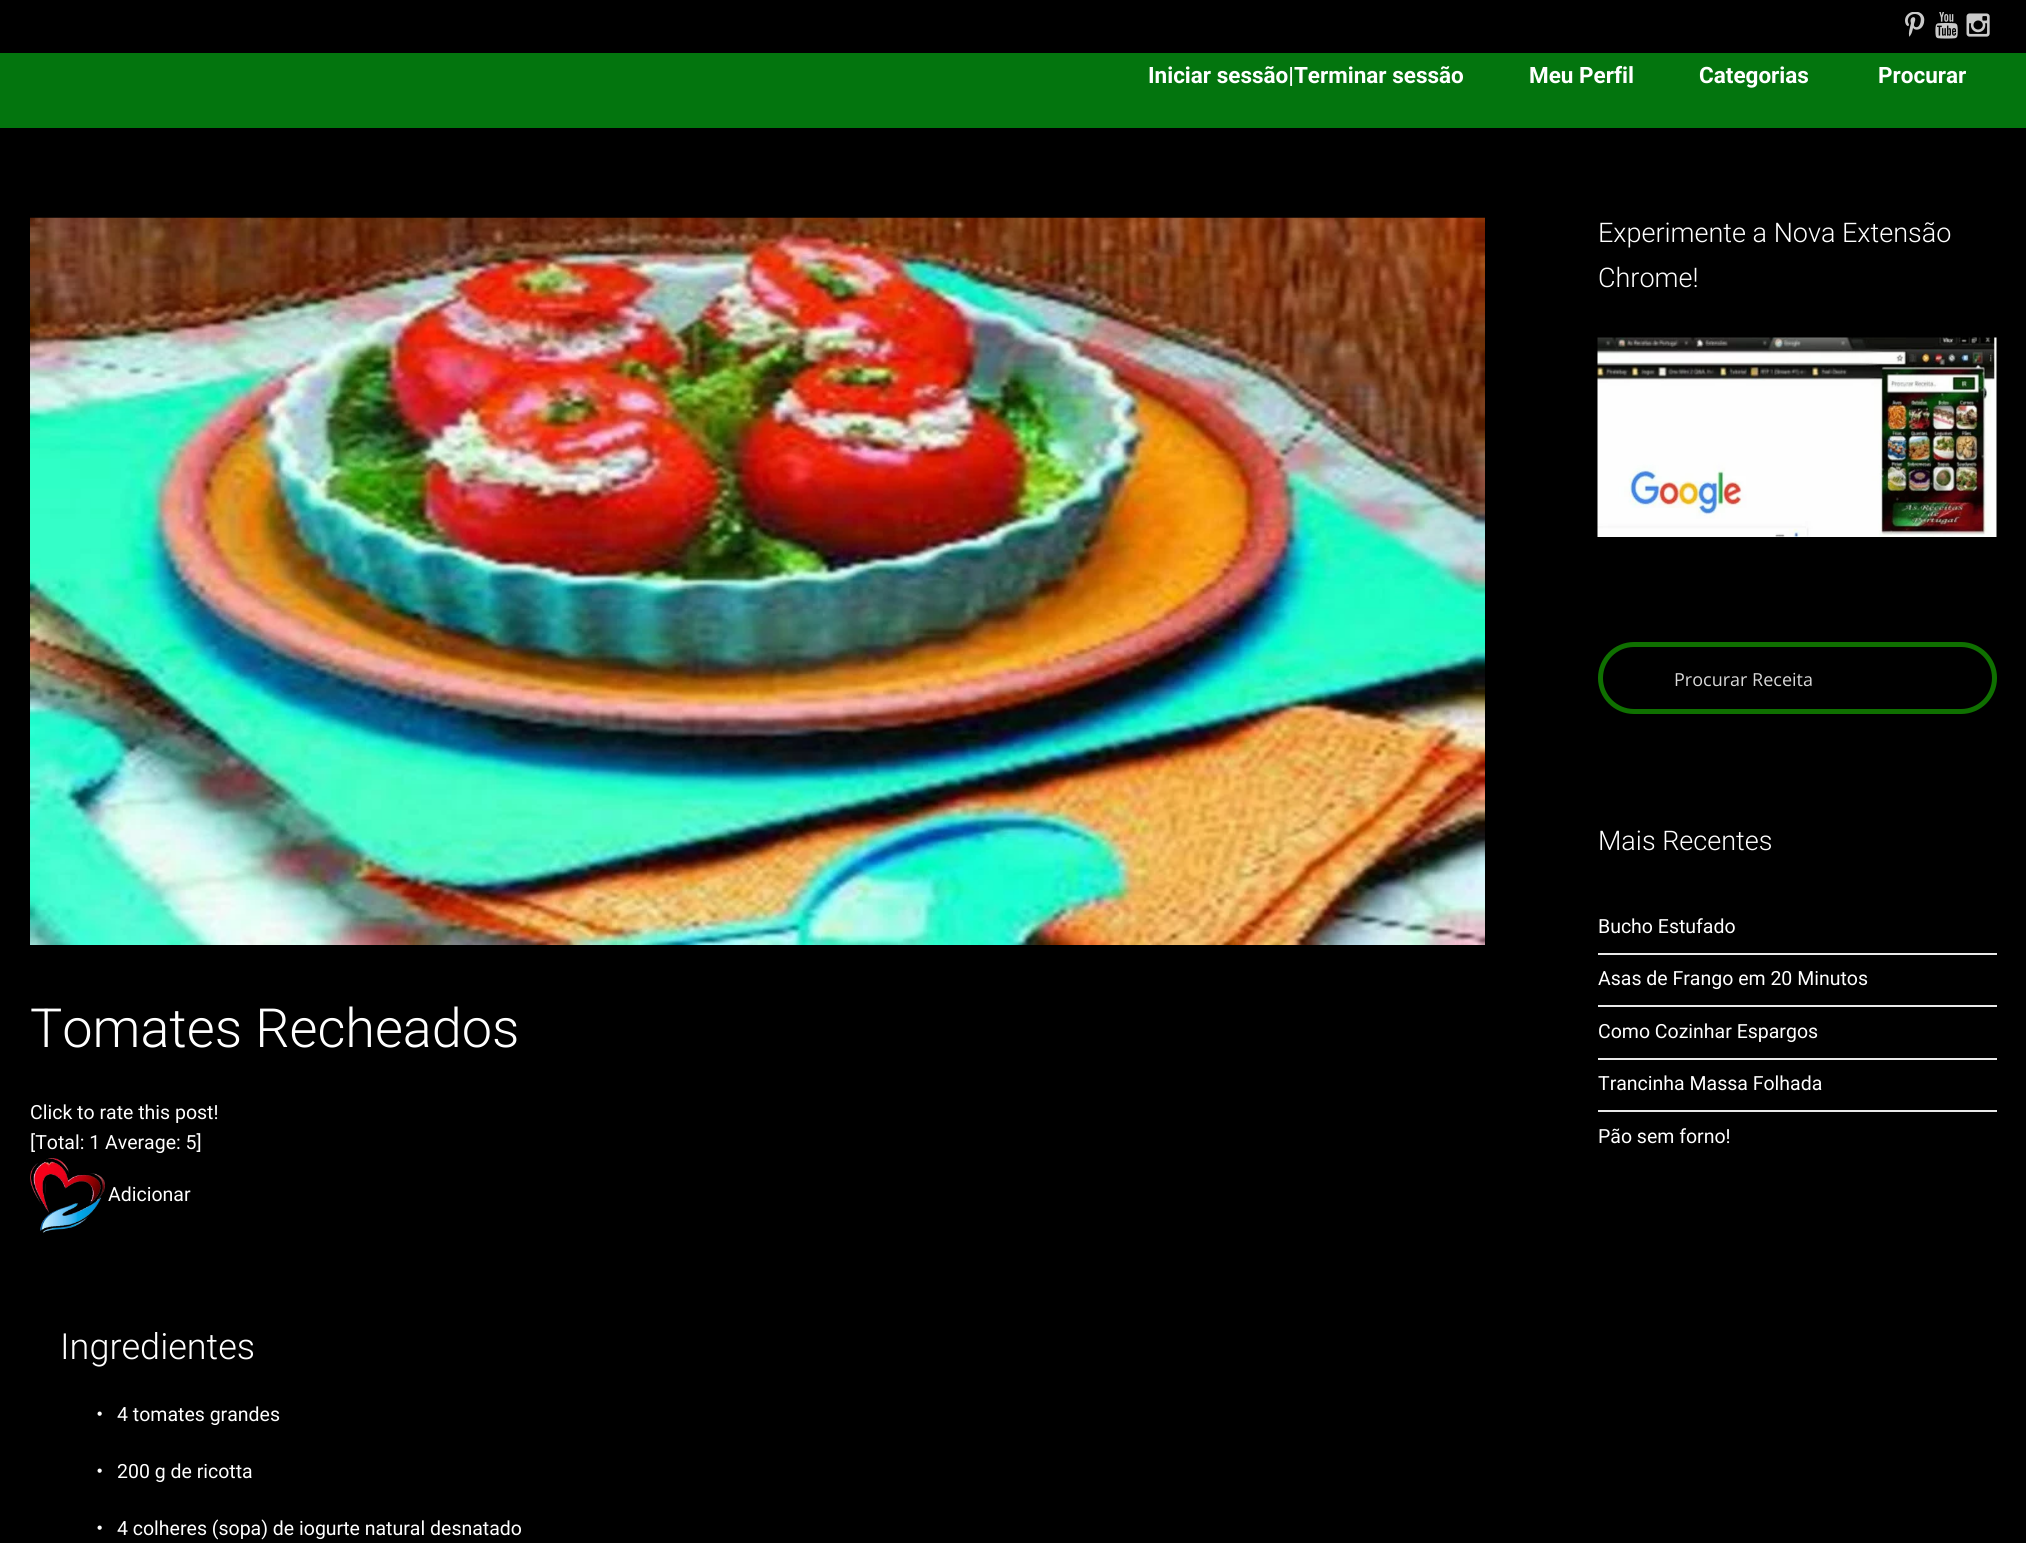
#include <cairo.h>
#include <math.h>
#include <stddef.h>

static cairo_t *c;
static void C(unsigned color){cairo_set_source_rgb(c, (color >> 16) / 255.0, (color >> 8 & 255) / 255.0, (color & 255) / 255.0);}
static void F(const char *family, double size, int italic, int bold){cairo_select_font_face(c, family, italic ? CAIRO_FONT_SLANT_ITALIC : CAIRO_FONT_SLANT_NORMAL,bold ? CAIRO_FONT_WEIGHT_BOLD : CAIRO_FONT_WEIGHT_NORMAL);cairo_set_font_size(c, size);}
static void T(double x, double y, const char *s){cairo_move_to(c, x, y);cairo_show_text(c, s);}
static void R(double x, double y, double w, double h){cairo_rectangle(c, x, y, w, h);cairo_fill(c);}
static void Q(double x, double y, double w, double h, double r){cairo_new_sub_path(c);cairo_arc(c, x + w - r, y + h - r, r, 0, M_PI / 2);cairo_arc(c, x + r, y + h - r, r, M_PI / 2, M_PI);cairo_arc(c, x + r, y + r, r, M_PI, 1.5 * M_PI);cairo_arc(c, x + w - r, y + r, r, 1.5 * M_PI, 2 * M_PI);cairo_close_path(c);}
static void I(const char *path, double x, double y, double w, double h){cairo_surface_t *image = cairo_image_surface_create_from_png(path);cairo_save(c);cairo_set_source_surface(c, image, x, y);cairo_rectangle(c, x, y, w, h);cairo_fill(c);cairo_restore(c);cairo_surface_destroy(image);}
int main(void) {
cairo_surface_t *surface = cairo_image_surface_create(CAIRO_FORMAT_RGB24, 2026, 1543);
c = cairo_create(surface);
cairo_font_options_t *options = cairo_font_options_create();
cairo_font_options_set_hint_metrics(options, CAIRO_HINT_METRICS_OFF);
cairo_font_options_set_hint_style(options, CAIRO_HINT_STYLE_NONE);
cairo_set_font_options(c, options);
cairo_set_miter_limit(c, 4);
C(0x03750e);
cairo_paint(c);
C(0x000000);
R(0,0,2026,53);
I("1.png",1905,12,20,25);
I("2.png",1935,12,23,27);
I("3.png",1966,13,24,24);
F("Roboto",22.5,0,1);
C(0xffffff);
T(1148,83,"Iniciar sessão|Terminar sessão");
T(1529,83,"Meu Perfil");
T(1699,83,"Categorias");
T(1878,83,"Procurar");
C(0x000000);
R(0,128,2026,1415);
F("Roboto Light",27,0,0);
C(0xffffff);
T(1598,242,"Experimente a Nova Extensão");
T(1598,287,"Chrome!");
I("4.png",1597,337,400,200);
Q(1600.5,644.5,394,67,33.5);
C(0x0f7000);
cairo_set_line_width(c,5);
cairo_stroke(c);
F("Open Sans",18,0,0);
C(0xd8d8d8);
T(1674,686,"Procurar Receita");
F("Roboto Light",27,0,0);
C(0xffffff);
T(1598,850,"Mais Recentes");
F("Roboto",19.5,0,0);
T(1598,933,"Bucho Estufado");
C(0xe9e9e9);
R(1598,953,399,2);
C(0xffffff);
T(1598,985,"Asas de Frango em 20 Minutos");
C(0xe9e9e9);
R(1598,1005,399,2);
C(0xffffff);
T(1598,1038,"Como Cozinhar Espargos");
C(0xe9e9e9);
R(1598,1058,399,2);
C(0xffffff);
T(1598,1090,"Trancinha Massa Folhada");
C(0xe9e9e9);
R(1598,1110,399,2);
C(0xffffff);
T(1598,1143,"Pão sem forno!");
I("5.png",30,217,1455,728);
F("Roboto Light",54,0,0);
T(30,1047,"Tomates Recheados");
F("Roboto",19.5,0,0);
T(30,1119,"Click to rate this post!");
T(30,1149,"[Total: 1 Average: 5]");
I("6.png",30,1158,75,75);
T(108,1201,"Adicionar");
F("Roboto Light",36,0,0);
T(60,1359,"Ingredientes");
I("7.png",97,1411,5,5);
F("Roboto",19.5,0,0);
T(117,1421,"4 tomates grandes");
I("7.png",97,1468,5,5);
T(117,1478,"200 g de ricotta");
I("7.png",97,1525,5,5);
T(117,1535,"4 colheres (sopa) de iogurte natural desnatado");
cairo_surface_write_to_png(surface, "o.png");
cairo_font_options_destroy(options);
cairo_destroy(c);
cairo_surface_destroy(surface);
return 0;
}
